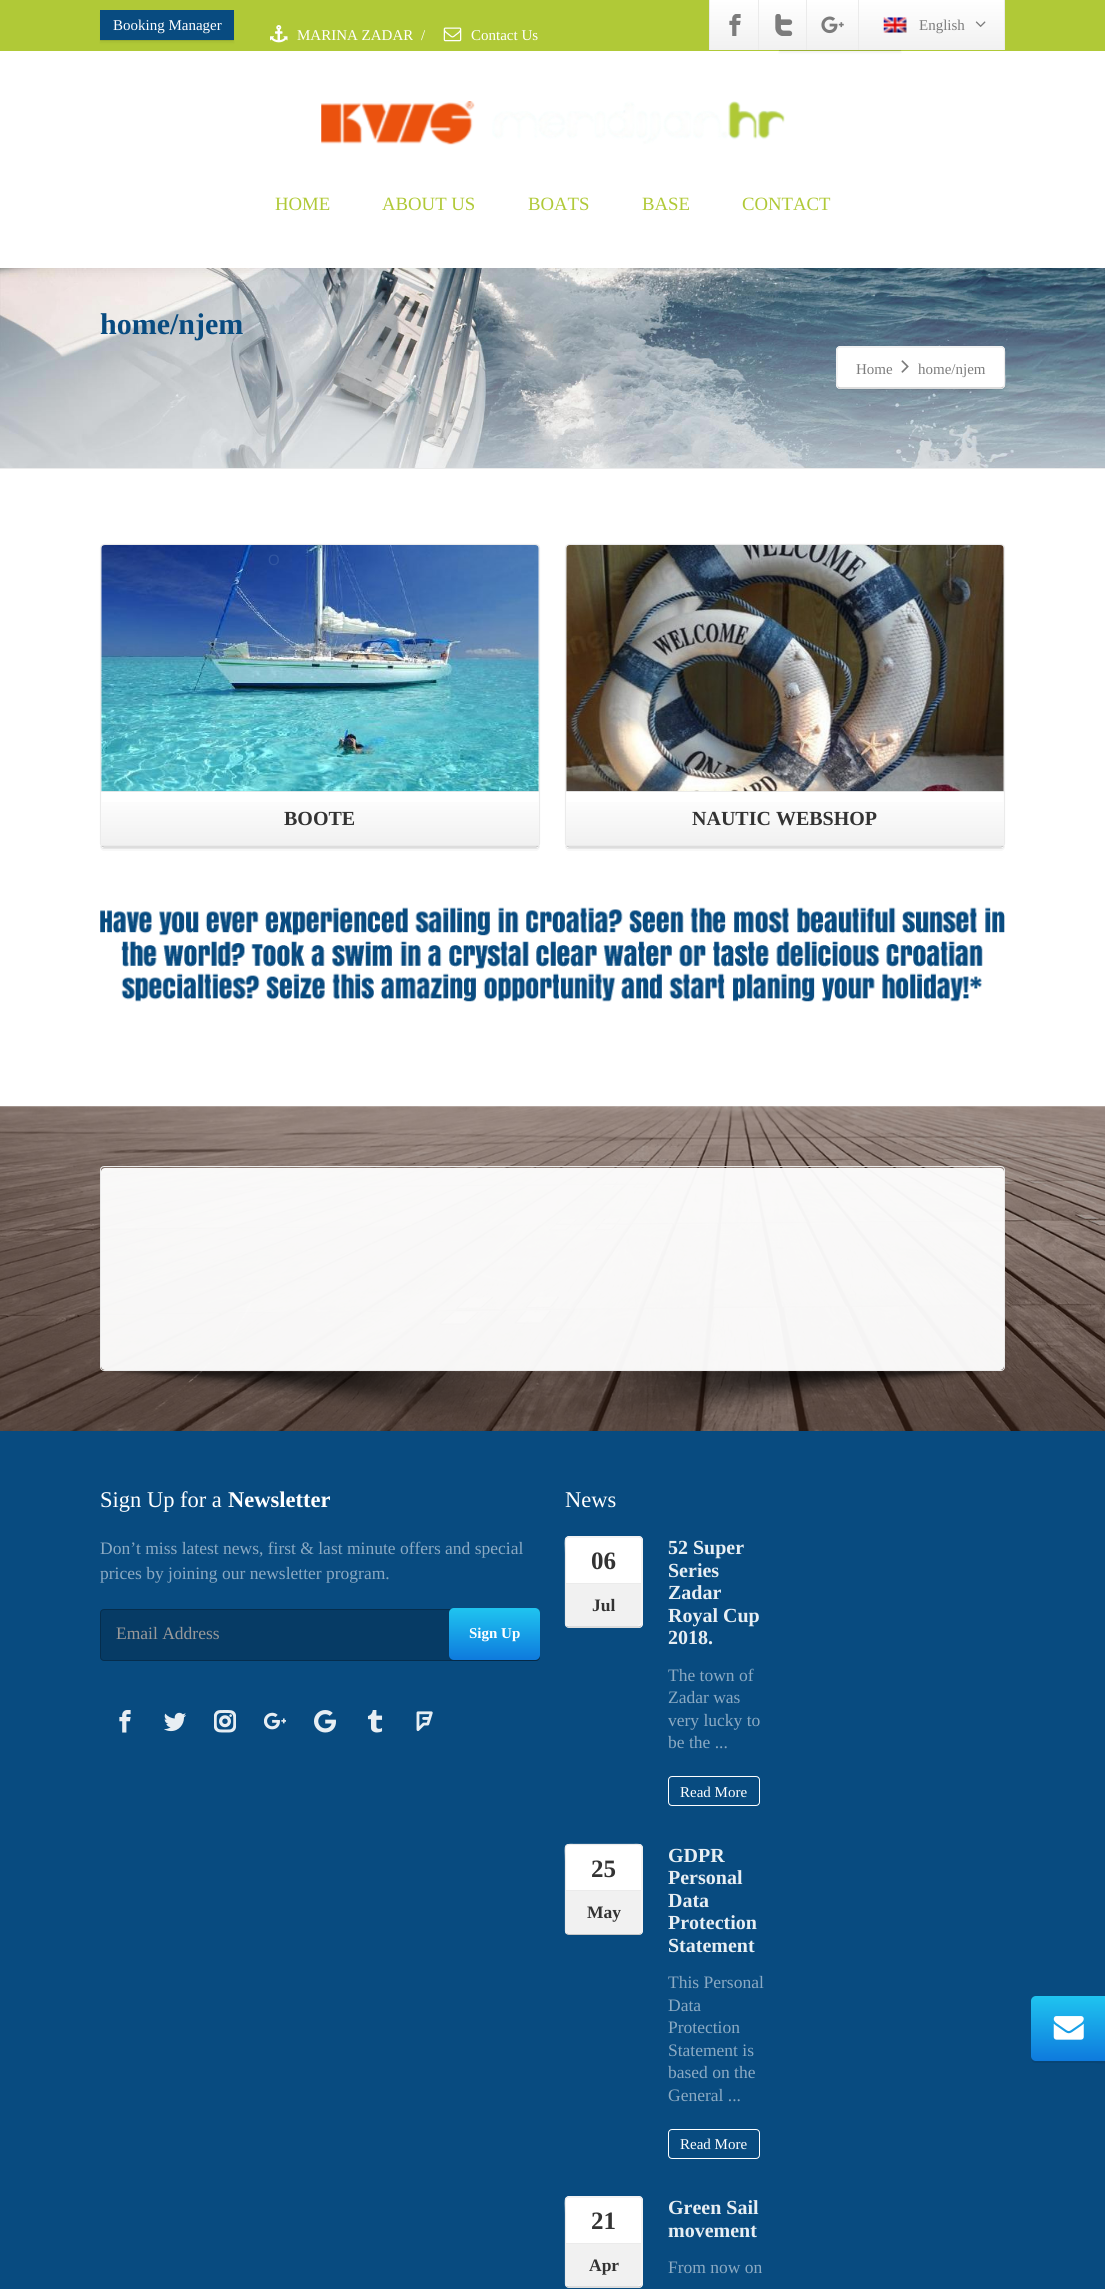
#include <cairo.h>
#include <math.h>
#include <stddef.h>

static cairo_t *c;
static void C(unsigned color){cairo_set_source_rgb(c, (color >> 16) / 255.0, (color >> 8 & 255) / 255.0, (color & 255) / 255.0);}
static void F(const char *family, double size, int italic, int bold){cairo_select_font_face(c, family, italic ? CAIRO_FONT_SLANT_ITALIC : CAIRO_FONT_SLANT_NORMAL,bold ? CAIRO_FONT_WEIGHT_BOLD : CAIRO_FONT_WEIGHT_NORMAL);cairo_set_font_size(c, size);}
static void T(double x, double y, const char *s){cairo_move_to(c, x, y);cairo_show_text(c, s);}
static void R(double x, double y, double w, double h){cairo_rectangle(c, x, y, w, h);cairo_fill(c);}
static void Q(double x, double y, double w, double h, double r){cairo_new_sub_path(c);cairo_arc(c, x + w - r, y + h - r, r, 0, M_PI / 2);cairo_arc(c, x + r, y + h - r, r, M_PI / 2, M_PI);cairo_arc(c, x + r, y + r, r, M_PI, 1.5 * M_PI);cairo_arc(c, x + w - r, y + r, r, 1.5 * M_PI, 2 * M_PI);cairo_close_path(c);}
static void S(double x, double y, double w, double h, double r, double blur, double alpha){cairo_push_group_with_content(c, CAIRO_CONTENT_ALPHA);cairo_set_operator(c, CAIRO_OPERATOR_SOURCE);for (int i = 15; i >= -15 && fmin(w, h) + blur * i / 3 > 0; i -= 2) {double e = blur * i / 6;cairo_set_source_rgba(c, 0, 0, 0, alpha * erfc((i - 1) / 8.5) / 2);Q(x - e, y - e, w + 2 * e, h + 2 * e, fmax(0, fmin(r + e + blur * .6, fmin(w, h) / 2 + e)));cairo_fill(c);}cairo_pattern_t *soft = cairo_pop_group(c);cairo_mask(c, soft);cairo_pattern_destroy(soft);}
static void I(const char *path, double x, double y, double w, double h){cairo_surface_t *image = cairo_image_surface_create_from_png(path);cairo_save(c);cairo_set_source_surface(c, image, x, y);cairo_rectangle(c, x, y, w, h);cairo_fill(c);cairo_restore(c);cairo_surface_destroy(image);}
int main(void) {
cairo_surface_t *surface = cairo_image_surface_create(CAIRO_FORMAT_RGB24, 1105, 2289);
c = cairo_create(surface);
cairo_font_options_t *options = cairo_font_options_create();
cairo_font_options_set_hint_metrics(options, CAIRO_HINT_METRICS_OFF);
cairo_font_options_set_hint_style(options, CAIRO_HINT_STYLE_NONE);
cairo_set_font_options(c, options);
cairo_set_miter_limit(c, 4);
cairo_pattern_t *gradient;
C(0xffffff);
cairo_paint(c);
I("9.png",0,268,1105,200);
C(0x000000);
S(0,54,1105,216,0,6,.1);
C(0xb0c937);
R(0,0,1105,51);
C(0xa2b933);
cairo_new_path(c);
cairo_move_to(c,100,40);
cairo_line_to(c,100,41);
cairo_line_to(c,234,41);
cairo_line_to(c,234,11);
cairo_line_to(c,234,40);
cairo_close_path(c);
cairo_fill(c);
C(0x000000);
S(100,13,134,30,0,1,.05);
C(0x084b80);
R(100,10,134,30);
F("Liberation Serif",15,0,0);
C(0xffffff);
T(113,30,"Booking Manager");
I("1.png",270,25,18,18);
T(297,40,"MARINA ZADAR");
T(421,40,"/");
I("2.png",443,27,19,15);
T(471,40,"Contact Us");
C(0xa2b933);
R(779,50,122,1);
C(0xffffff);
R(0,51,1105,217);
C(0x000000);
S(779,3,122,50,0,1,.05);
gradient = cairo_pattern_create_linear(735,0,735,50);
cairo_pattern_add_color_stop_rgba(gradient,0,1,1,1,1);
cairo_pattern_add_color_stop_rgba(gradient,1,0.945,0.945,0.945,1);
cairo_set_source(c,gradient);
cairo_pattern_destroy(gradient);
R(710,0,48,50);
C(0xebebeb);
R(709,0,1,50);
I("3.png",729,14,12,22);
gradient = cairo_pattern_create_linear(784,0,784,50);
cairo_pattern_add_color_stop_rgba(gradient,0,1,1,1,1);
cairo_pattern_add_color_stop_rgba(gradient,1,0.945,0.945,0.945,1);
cairo_set_source(c,gradient);
cairo_pattern_destroy(gradient);
R(759,0,47,50);
C(0xebebeb);
R(758,0,1,50);
I("4.png",775,14,18,22);
gradient = cairo_pattern_create_linear(833,0,833,50);
cairo_pattern_add_color_stop_rgba(gradient,0,1,1,1,1);
cairo_pattern_add_color_stop_rgba(gradient,1,0.945,0.945,0.945,1);
cairo_set_source(c,gradient);
cairo_pattern_destroy(gradient);
R(807,0,51,50);
C(0xebebeb);
R(858,0,1,50);
R(806,0,1,50);
I("5.png",821,16,23,18);
R(1004,0,1,50);
gradient = cairo_pattern_create_linear(931,0,931,50);
cairo_pattern_add_color_stop_rgba(gradient,0,1,1,1,1);
cairo_pattern_add_color_stop_rgba(gradient,1,0.945,0.945,0.945,1);
cairo_set_source(c,gradient);
cairo_pattern_destroy(gradient);
R(859,0,145,50);
I("6.png",883,17,24,16);
C(0x7c7c7c);
T(919,30,"English");
I("7.png",975,21,11,6);
I("8.png",321,101,464,44);
F("Liberation Serif",18.75,0,0);
C(0xb0c937);
T(275,210,"HOME");
T(382,210,"ABOUT US");
T(528,210,"BOATS");
T(642,210,"BASE");
T(742,210,"CONTACT");
C(0xebebeb);
R(0,468,1105,1);
F("Liberation Serif",30,0,1);
C(0x084b80);
T(100,334,"home/njem");
cairo_set_source_rgba(c,0,0,0,0.07);
cairo_new_path(c);
cairo_move_to(c,836,351);
cairo_line_to(c,836,386);
cairo_curve_to(c,836,388,838,390,840,390);
cairo_line_to(c,1001,390);
cairo_curve_to(c,1003,390,1005,388,1005,386);
cairo_line_to(c,1005,385);
cairo_curve_to(c,1005,387,1003,389,1001,389);
cairo_line_to(c,840,389);
cairo_curve_to(c,838,389,836,387,836,385);
cairo_close_path(c);
cairo_fill(c);
cairo_set_source_rgba(c,0,0,0,0.03);
cairo_new_path(c);
cairo_move_to(c,836,353);
cairo_line_to(c,836,389);
cairo_curve_to(c,836,391,838,393,840,393);
cairo_line_to(c,1001,393);
cairo_curve_to(c,1003,393,1005,391,1005,389);
cairo_line_to(c,1005,385);
cairo_curve_to(c,1005,387,1003,389,1001,389);
cairo_line_to(c,840,389);
cairo_curve_to(c,838,389,836,387,836,385);
cairo_close_path(c);
cairo_fill(c);
C(0xffffff);
Q(836,346,169,43,4);
cairo_fill(c);
cairo_new_path(c);
cairo_move_to(c,1003.5,387);
cairo_line_to(c,1001,388);
cairo_line_to(c,839.5,388);
cairo_line_to(c,838,387);
cairo_set_source_rgba(c,0,0,0,0.22);
cairo_set_line_width(c,1.2);
cairo_stroke(c);
cairo_new_path(c);
cairo_move_to(c,838,387);
cairo_curve_to(c,835.5,385,837,376,837,373.5);
cairo_line_to(c,837,356);
cairo_curve_to(c,837,353.5,835.5,347,840,347);
cairo_line_to(c,1001,347);
cairo_curve_to(c,1005.5,347,1004.5,353.5,1004.5,356);
cairo_line_to(c,1004.5,373.5);
cairo_curve_to(c,1004.5,376,1005.5,385,1003.5,387);
C(0xebebeb);
cairo_stroke(c);
F("Liberation Serif",15,0,0);
C(0x7c7c7c);
T(856,374,"Home");
I("10.png",901,360,8,13);
T(918,374,"home/njem");
C(0xededed);
cairo_new_path(c);
cairo_move_to(c,100,844);
cairo_curve_to(c,100,846,101,849,104,849);
cairo_line_to(c,536,849);
cairo_curve_to(c,539,849,540,846,540,844);
cairo_curve_to(c,540,846,538,848,536,848);
cairo_line_to(c,104,848);
cairo_curve_to(c,102,848,100,846,100,844);
cairo_close_path(c);
cairo_fill(c);
cairo_set_source_rgba(c,0,0,0,0.03);
cairo_new_path(c);
cairo_move_to(c,100,844);
cairo_line_to(c,100,847);
cairo_curve_to(c,100,849,102,851,104,851);
cairo_line_to(c,536,851);
cairo_curve_to(c,538,851,540,849,540,847);
cairo_line_to(c,540,844);
cairo_curve_to(c,540,846,538,848,536,848);
cairo_line_to(c,104,848);
cairo_curve_to(c,102,848,100,846,100,844);
cairo_close_path(c);
cairo_fill(c);
C(0xffffff);
Q(100,544,440,304,4);
cairo_fill(c);
cairo_new_path(c);
cairo_move_to(c,538.5,846);
cairo_line_to(c,536,847);
cairo_line_to(c,104,847);
cairo_line_to(c,101.5,846);
C(0xc7c7c7);
cairo_stroke(c);
cairo_new_path(c);
cairo_move_to(c,101.5,846);
cairo_line_to(c,100.5,844);
cairo_line_to(c,100.5,547.5);
cairo_line_to(c,101.5,545.5);
cairo_line_to(c,104,544.5);
cairo_line_to(c,536,544.5);
cairo_line_to(c,538.5,545.5);
cairo_line_to(c,539.5,547.5);
cairo_line_to(c,539.5,844);
cairo_line_to(c,538.5,846);
C(0xebebeb);
cairo_stroke(c);
R(101,791,438,1);
I("11.png",101,545,438,247);
F("Liberation Sans",15,0,0);
C(0x3156a1);
T(268,565,"O");
gradient = cairo_pattern_create_linear(320,793,320,845);
cairo_pattern_add_color_stop_rgba(gradient,0,1,1,1,1);
cairo_pattern_add_color_stop_rgba(gradient,1,0.945,0.945,0.945,1);
cairo_set_source(c,gradient);
cairo_pattern_destroy(gradient);
R(101,802,438,43);
C(0xebebeb);
R(101,845,438,1);
F("Liberation Serif",20,0,1);
C(0x333333);
T(284,825,"BOOTE");
C(0xededed);
cairo_new_path(c);
cairo_move_to(c,565,844);
cairo_curve_to(c,565,846,566,849,569,849);
cairo_line_to(c,1001,849);
cairo_curve_to(c,1004,849,1005,846,1005,844);
cairo_curve_to(c,1005,846,1003,848,1001,848);
cairo_line_to(c,569,848);
cairo_curve_to(c,567,848,565,846,565,844);
cairo_close_path(c);
cairo_fill(c);
cairo_set_source_rgba(c,0,0,0,0.03);
cairo_new_path(c);
cairo_move_to(c,565,844);
cairo_line_to(c,565,847);
cairo_curve_to(c,565,849,567,851,569,851);
cairo_line_to(c,1001,851);
cairo_curve_to(c,1003,851,1005,849,1005,847);
cairo_line_to(c,1005,844);
cairo_curve_to(c,1005,846,1003,848,1001,848);
cairo_line_to(c,569,848);
cairo_curve_to(c,567,848,565,846,565,844);
cairo_close_path(c);
cairo_fill(c);
C(0xffffff);
Q(565,544,440,304,4);
cairo_fill(c);
cairo_new_path(c);
cairo_move_to(c,1003.5,846);
cairo_line_to(c,1001,847);
cairo_line_to(c,569,847);
cairo_line_to(c,566.5,846);
C(0xc7c7c7);
cairo_stroke(c);
cairo_new_path(c);
cairo_move_to(c,566.5,846);
cairo_line_to(c,565.5,844);
cairo_line_to(c,565.5,547.5);
cairo_line_to(c,566.5,545.5);
cairo_line_to(c,569,544.5);
cairo_line_to(c,1001,544.5);
cairo_line_to(c,1003.5,545.5);
cairo_line_to(c,1004.5,547.5);
cairo_line_to(c,1004.5,844);
cairo_line_to(c,1003.5,846);
C(0xebebeb);
cairo_stroke(c);
R(566,791,438,1);
I("12.png",566,545,438,247);
gradient = cairo_pattern_create_linear(785,793,785,845);
cairo_pattern_add_color_stop_rgba(gradient,0,1,1,1,1);
cairo_pattern_add_color_stop_rgba(gradient,1,0.945,0.945,0.945,1);
cairo_set_source(c,gradient);
cairo_pattern_destroy(gradient);
R(566,802,438,43);
C(0xebebeb);
R(566,845,438,1);
C(0x333333);
T(692,825,"NAUTIC WEBSHOP");
I("13.png",100,907,905,95);
I("14.png",0,1106,1105,325);
Q(100.5,1166.5,904,204,3.5);
C(0xebebeb);
cairo_set_line_width(c,1);
cairo_stroke(c);
cairo_set_source_rgba(c,1,1,1,0.95);
Q(101,1168,903,202,4);
cairo_fill(c);
I("15.png",110,1371,882,60);
C(0x084b80);
R(0,1431,1105,858);
F("Liberation Serif",22.5,0,0);
C(0xffffff);
T(100,1507,"Sign Up for a");
F("Liberation Serif",22.5,0,1);
T(228,1507,"Newsletter");
F("Liberation Serif",17.5,0,0);
C(0x8baac3);
T(100,1554,"Don’t miss latest news, first & last minute offers and special");
T(100,1579,"prices by joining our newsletter program.");
C(0x063b65);
Q(100.5,1609.5,439,51,3.5);
cairo_fill_preserve(c);
C(0x052d4d);
cairo_stroke(c);
C(0x999999);
T(116,1639,"Email Address");
cairo_set_source_rgba(c,0,0,0,0.08);
cairo_new_path(c);
cairo_move_to(c,449,1657);
cairo_curve_to(c,449,1659,451,1661,454,1661);
cairo_line_to(c,535,1661);
cairo_curve_to(c,538,1661,540,1659,540,1656);
cairo_line_to(c,540,1655);
cairo_curve_to(c,540,1658,538,1660,535,1660);
cairo_line_to(c,454,1660);
cairo_curve_to(c,452,1660,450,1659,449,1657);
cairo_close_path(c);
cairo_fill(c);
gradient = cairo_pattern_create_linear(494,1608,494,1660);
cairo_pattern_add_color_stop_rgba(gradient,0,0.122,0.769,0.941,1);
cairo_pattern_add_color_stop_rgba(gradient,1,0.055,0.478,0.867,1);
cairo_set_source(c,gradient);
cairo_pattern_destroy(gradient);
Q(449,1608,91,52,5);
cairo_fill(c);
F("Liberation Serif",15,0,1);
C(0xffffff);
T(469,1638,"Sign Up");
I("16.png",119,1710,12,23);
I("17.png",164,1712,22,20);
I("18.png",214,1710,22,23);
I("19.png",264,1712,22,18);
I("20.png",314,1710,22,23);
I("21.png",367,1710,16,23);
I("22.png",416,1711,17,21);
F("Liberation Serif",22.5,0,0);
T(565,1507,"News");
Q(565,1536,78,92,4);
cairo_fill(c);
cairo_new_path(c);
cairo_move_to(c,641,1626);
cairo_line_to(c,639,1627);
cairo_line_to(c,568.5,1627);
cairo_line_to(c,566.5,1626);
cairo_set_source_rgba(c,0,0,0,0.22);
cairo_set_line_width(c,1.2);
cairo_stroke(c);
cairo_new_path(c);
cairo_move_to(c,566.5,1626);
cairo_line_to(c,565.5,1624);
cairo_line_to(c,565.5,1554);
cairo_curve_to(c,565.5,1534.5,562,1537,580.5,1537);
cairo_line_to(c,627,1537);
cairo_curve_to(c,645.5,1537,642,1534.5,642,1554);
cairo_line_to(c,642,1624);
cairo_line_to(c,641,1626);
C(0xebebeb);
cairo_stroke(c);
F("Liberation Serif",25,0,1);
C(0x333333);
T(591,1569,"06");
C(0xf1f1f1);
cairo_new_path(c);
cairo_move_to(c,566,1583);
cairo_line_to(c,641,1583);
cairo_line_to(c,641,1622);
cairo_curve_to(c,641,1624,639,1626,637,1626);
cairo_line_to(c,570,1626);
cairo_curve_to(c,568,1626,566,1624,566,1622);
cairo_close_path(c);
cairo_fill(c);
C(0xebebeb);
R(566,1583,75,1);
F("Liberation Serif",17.5,0,1);
C(0x333333);
T(592,1611,"Jul");
F("Liberation Serif",20,0,1);
C(0xe7eef3);
T(668,1554,"52 Super");
T(668,1577,"Series");
T(668,1599,"Zadar");
T(668,1622,"Royal Cup");
T(668,1644,"2018.");
cairo_save(c);
cairo_rectangle(c,668,1536,105,270);
cairo_clip(c);
F("Liberation Serif",17.5,0,0);
C(0x8baac3);
T(668,1681,"The town of");
cairo_restore(c);
F("Liberation Serif",17.5,0,0);
C(0x8baac3);
T(668,1703,"Zadar was");
T(668,1726,"very lucky to");
T(668,1748,"be the ...");
Q(668.5,1776.5,91,29,3.5);
C(0xffffff);
cairo_set_line_width(c,1);
cairo_stroke(c);
F("Liberation Serif",15,0,0);
T(680,1797,"Read More");
Q(565,1844,78,91,4);
cairo_fill(c);
cairo_new_path(c);
cairo_move_to(c,641,1933.5);
cairo_line_to(c,639,1934.5);
cairo_line_to(c,568.5,1934.5);
cairo_line_to(c,566.5,1933.5);
cairo_set_source_rgba(c,0,0,0,0.22);
cairo_set_line_width(c,1.2);
cairo_stroke(c);
cairo_new_path(c);
cairo_move_to(c,566.5,1933.5);
cairo_line_to(c,565.5,1931);
cairo_line_to(c,565.5,1861.5);
cairo_curve_to(c,565.5,1842,562,1844.5,580.5,1844.5);
cairo_line_to(c,627,1844.5);
cairo_curve_to(c,645.5,1844.5,642,1842,642,1861.5);
cairo_line_to(c,642,1931);
cairo_line_to(c,641,1933.5);
C(0xebebeb);
cairo_stroke(c);
F("Liberation Serif",25,0,1);
C(0x333333);
T(591,1877,"25");
C(0xf1f1f1);
cairo_new_path(c);
cairo_move_to(c,566,1890);
cairo_line_to(c,641,1890);
cairo_line_to(c,641,1930);
cairo_curve_to(c,641,1932,639,1934,637,1934);
cairo_line_to(c,570,1934);
cairo_curve_to(c,568,1934,566,1932,566,1930);
cairo_close_path(c);
cairo_fill(c);
C(0xebebeb);
R(566,1890,75,1);
F("Liberation Serif",17.5,0,1);
C(0x333333);
T(587,1918,"May");
F("Liberation Serif",20,0,1);
C(0xe7eef3);
T(668,1862,"GDPR");
T(668,1884,"Personal");
T(668,1907,"Data");
T(668,1929,"Protection");
T(668,1952,"Statement");
cairo_save(c);
cairo_rectangle(c,668,1844,105,315);
cairo_clip(c);
F("Liberation Serif",17.5,0,0);
C(0x8baac3);
T(668,1988,"This Personal");
cairo_restore(c);
F("Liberation Serif",17.5,0,0);
C(0x8baac3);
T(668,2011,"Data");
T(668,2033,"Protection");
T(668,2056,"Statement is");
T(668,2078,"based on the");
T(668,2101,"General ...");
Q(668.5,2129.5,91,29,3.5);
C(0xffffff);
cairo_set_line_width(c,1);
cairo_stroke(c);
F("Liberation Serif",15,0,0);
T(680,2149,"Read More");
Q(565,2196,78,92,4);
cairo_fill(c);
cairo_new_path(c);
cairo_move_to(c,641,2286);
cairo_line_to(c,639,2287);
cairo_line_to(c,568.5,2287);
cairo_line_to(c,566.5,2286);
cairo_set_source_rgba(c,0,0,0,0.22);
cairo_set_line_width(c,1.2);
cairo_stroke(c);
cairo_new_path(c);
cairo_move_to(c,566.5,2286);
cairo_line_to(c,565.5,2284);
cairo_line_to(c,565.5,2214);
cairo_curve_to(c,565.5,2194.5,562,2197,580.5,2197);
cairo_line_to(c,627,2197);
cairo_curve_to(c,645.5,2197,642,2194.5,642,2214);
cairo_line_to(c,642,2284);
cairo_line_to(c,641,2286);
C(0xebebeb);
cairo_stroke(c);
F("Liberation Serif",25,0,1);
C(0x333333);
T(591,2229,"21");
C(0xf1f1f1);
cairo_new_path(c);
cairo_move_to(c,566,2243);
cairo_line_to(c,641,2243);
cairo_line_to(c,641,2282);
cairo_curve_to(c,641,2284,639,2286,637,2286);
cairo_line_to(c,570,2286);
cairo_curve_to(c,568,2286,566,2284,566,2282);
cairo_close_path(c);
cairo_fill(c);
C(0xebebeb);
R(566,2243,75,1);
F("Liberation Serif",17.5,0,1);
C(0x333333);
T(589,2271,"Apr");
F("Liberation Serif",20,0,1);
C(0xe7eef3);
T(668,2214,"Green Sail");
T(668,2237,"movement");
F("Liberation Serif",17.5,0,0);
C(0x8baac3);
T(668,2273,"From now on");
C(0x074576);
cairo_new_path(c);
cairo_move_to(c,1031,2001);
cairo_line_to(c,1031,2049);
cairo_curve_to(c,1031,2052,1029,2062,1035,2063);
cairo_line_to(c,1094,2063);
cairo_curve_to(c,1098,2063,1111,2066,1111,2058);
cairo_curve_to(c,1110,2060,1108,2061,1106,2061);
cairo_line_to(c,1036,2061);
cairo_curve_to(c,1033,2061,1031,2059,1031,2056);
cairo_close_path(c);
cairo_fill(c);
gradient = cairo_pattern_create_linear(1071,1996,1071,2061);
cairo_pattern_add_color_stop_rgba(gradient,0,0.122,0.769,0.941,1);
cairo_pattern_add_color_stop_rgba(gradient,1,0.055,0.478,0.867,1);
cairo_set_source(c,gradient);
cairo_pattern_destroy(gradient);
Q(1031,1996,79,65,5);
cairo_fill(c);
I("23.png",1053,2016,31,24);
cairo_surface_write_to_png(surface, "o.png");
cairo_font_options_destroy(options);
cairo_destroy(c);
cairo_surface_destroy(surface);
return 0;
}
